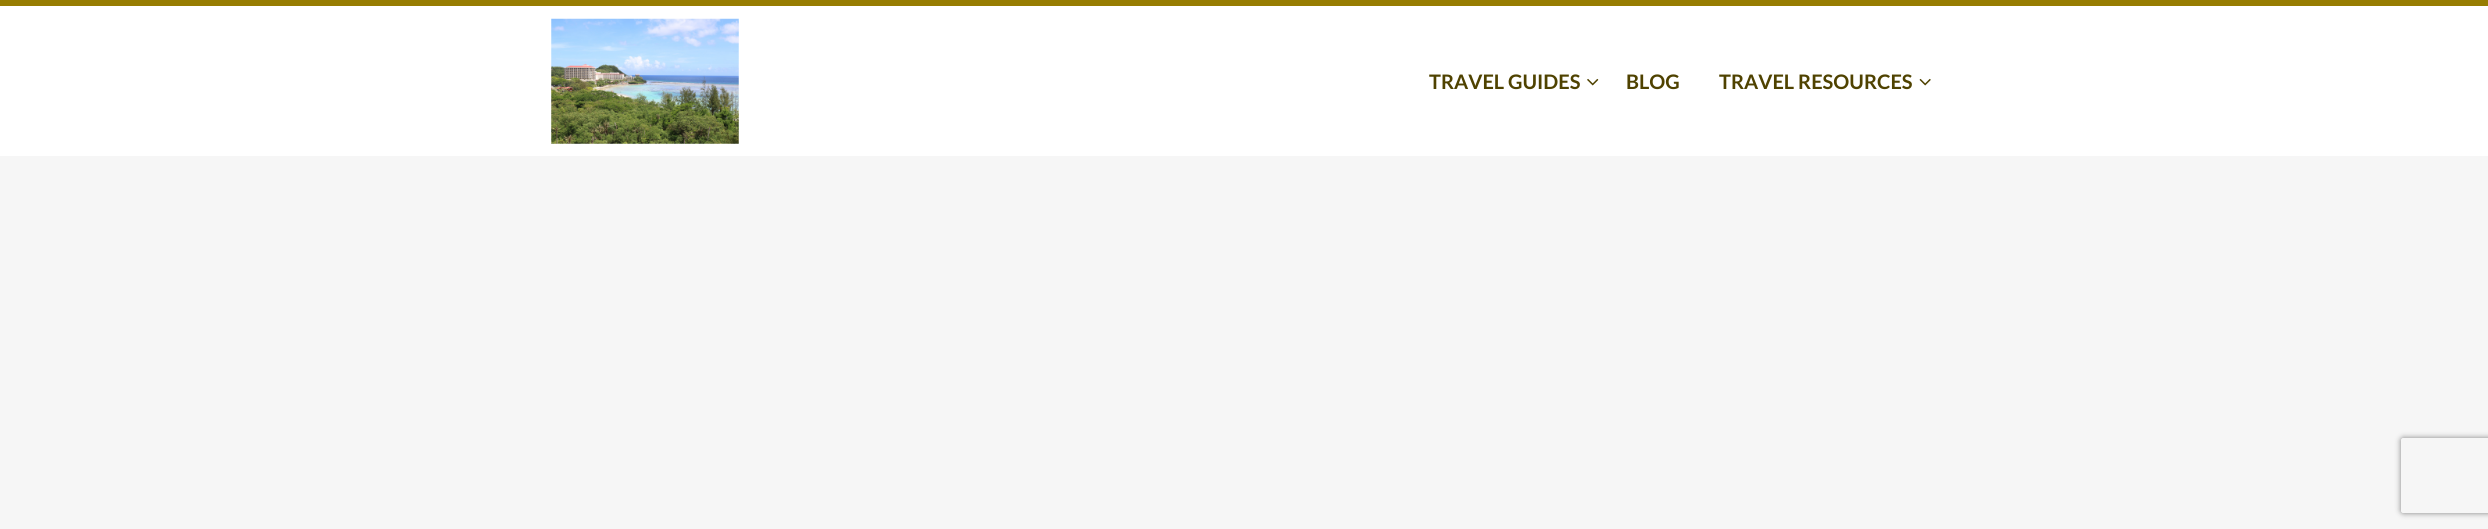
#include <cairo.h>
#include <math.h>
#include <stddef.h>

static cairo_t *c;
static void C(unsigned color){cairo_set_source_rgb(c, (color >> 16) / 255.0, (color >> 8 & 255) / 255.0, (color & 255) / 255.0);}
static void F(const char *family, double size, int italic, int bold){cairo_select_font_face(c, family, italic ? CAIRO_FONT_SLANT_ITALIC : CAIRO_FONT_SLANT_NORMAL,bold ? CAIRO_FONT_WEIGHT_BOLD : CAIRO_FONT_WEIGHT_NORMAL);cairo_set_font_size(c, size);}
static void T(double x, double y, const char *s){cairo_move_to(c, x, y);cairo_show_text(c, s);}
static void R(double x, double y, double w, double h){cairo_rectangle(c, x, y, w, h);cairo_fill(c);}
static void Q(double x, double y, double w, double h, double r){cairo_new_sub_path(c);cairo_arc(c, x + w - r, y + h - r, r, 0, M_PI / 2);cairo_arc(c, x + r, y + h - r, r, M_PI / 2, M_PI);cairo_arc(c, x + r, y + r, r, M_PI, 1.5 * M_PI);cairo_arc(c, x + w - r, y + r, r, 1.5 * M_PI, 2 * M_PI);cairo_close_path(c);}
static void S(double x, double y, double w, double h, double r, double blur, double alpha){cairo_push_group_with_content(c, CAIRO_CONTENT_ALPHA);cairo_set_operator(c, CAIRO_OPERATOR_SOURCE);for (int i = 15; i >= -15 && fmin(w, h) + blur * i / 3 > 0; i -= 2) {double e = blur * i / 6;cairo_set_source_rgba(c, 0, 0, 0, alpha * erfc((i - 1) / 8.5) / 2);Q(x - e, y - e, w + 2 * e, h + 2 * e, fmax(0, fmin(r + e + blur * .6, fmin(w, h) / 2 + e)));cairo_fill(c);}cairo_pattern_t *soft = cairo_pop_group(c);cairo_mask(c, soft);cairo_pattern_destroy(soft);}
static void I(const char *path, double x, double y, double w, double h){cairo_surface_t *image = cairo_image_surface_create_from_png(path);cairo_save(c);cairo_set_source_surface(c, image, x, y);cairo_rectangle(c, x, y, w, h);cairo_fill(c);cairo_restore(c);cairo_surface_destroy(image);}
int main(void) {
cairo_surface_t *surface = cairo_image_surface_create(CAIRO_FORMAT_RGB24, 2488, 529);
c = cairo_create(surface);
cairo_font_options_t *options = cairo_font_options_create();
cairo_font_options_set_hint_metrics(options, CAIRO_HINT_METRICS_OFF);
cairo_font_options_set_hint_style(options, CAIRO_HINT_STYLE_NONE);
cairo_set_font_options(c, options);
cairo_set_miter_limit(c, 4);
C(0xf6f6f6);
cairo_paint(c);
C(0xffffff);
R(0,6,2488,150);
C(0x977d02);
R(0,0,2488,6);
I("1.png",551,18,188,126);
F("Lato",20,0,1);
C(0x4f4200);
T(1429,89,"TRAVEL GUIDES");
I("2.png",1587,78,12,8);
T(1626,89,"BLOG");
T(1719,89,"TRAVEL RESOURCES");
I("3.png",1919,78,12,8);
cairo_save(c);
cairo_set_fill_rule(c,CAIRO_FILL_RULE_EVEN_ODD);
cairo_new_path(c);
cairo_move_to(c,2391,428);
cairo_line_to(c,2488,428);
cairo_line_to(c,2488,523);
cairo_line_to(c,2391,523);
cairo_close_path(c);
cairo_move_to(c,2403.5,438);
cairo_line_to(c,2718.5,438);
cairo_curve_to(c,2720,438,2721,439,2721,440.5);
cairo_line_to(c,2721,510.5);
cairo_curve_to(c,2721,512,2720,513,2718.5,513);
cairo_line_to(c,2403.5,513);
cairo_curve_to(c,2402,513,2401,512,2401,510.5);
cairo_line_to(c,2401,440.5);
cairo_curve_to(c,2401,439,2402,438,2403.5,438);
cairo_close_path(c);
cairo_clip(c);
C(0x808080);
S(2401,438,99,75,2.5,3,1);
cairo_restore(c);
cairo_surface_write_to_png(surface, "o.png");
cairo_font_options_destroy(options);
cairo_destroy(c);
cairo_surface_destroy(surface);
return 0;
}
